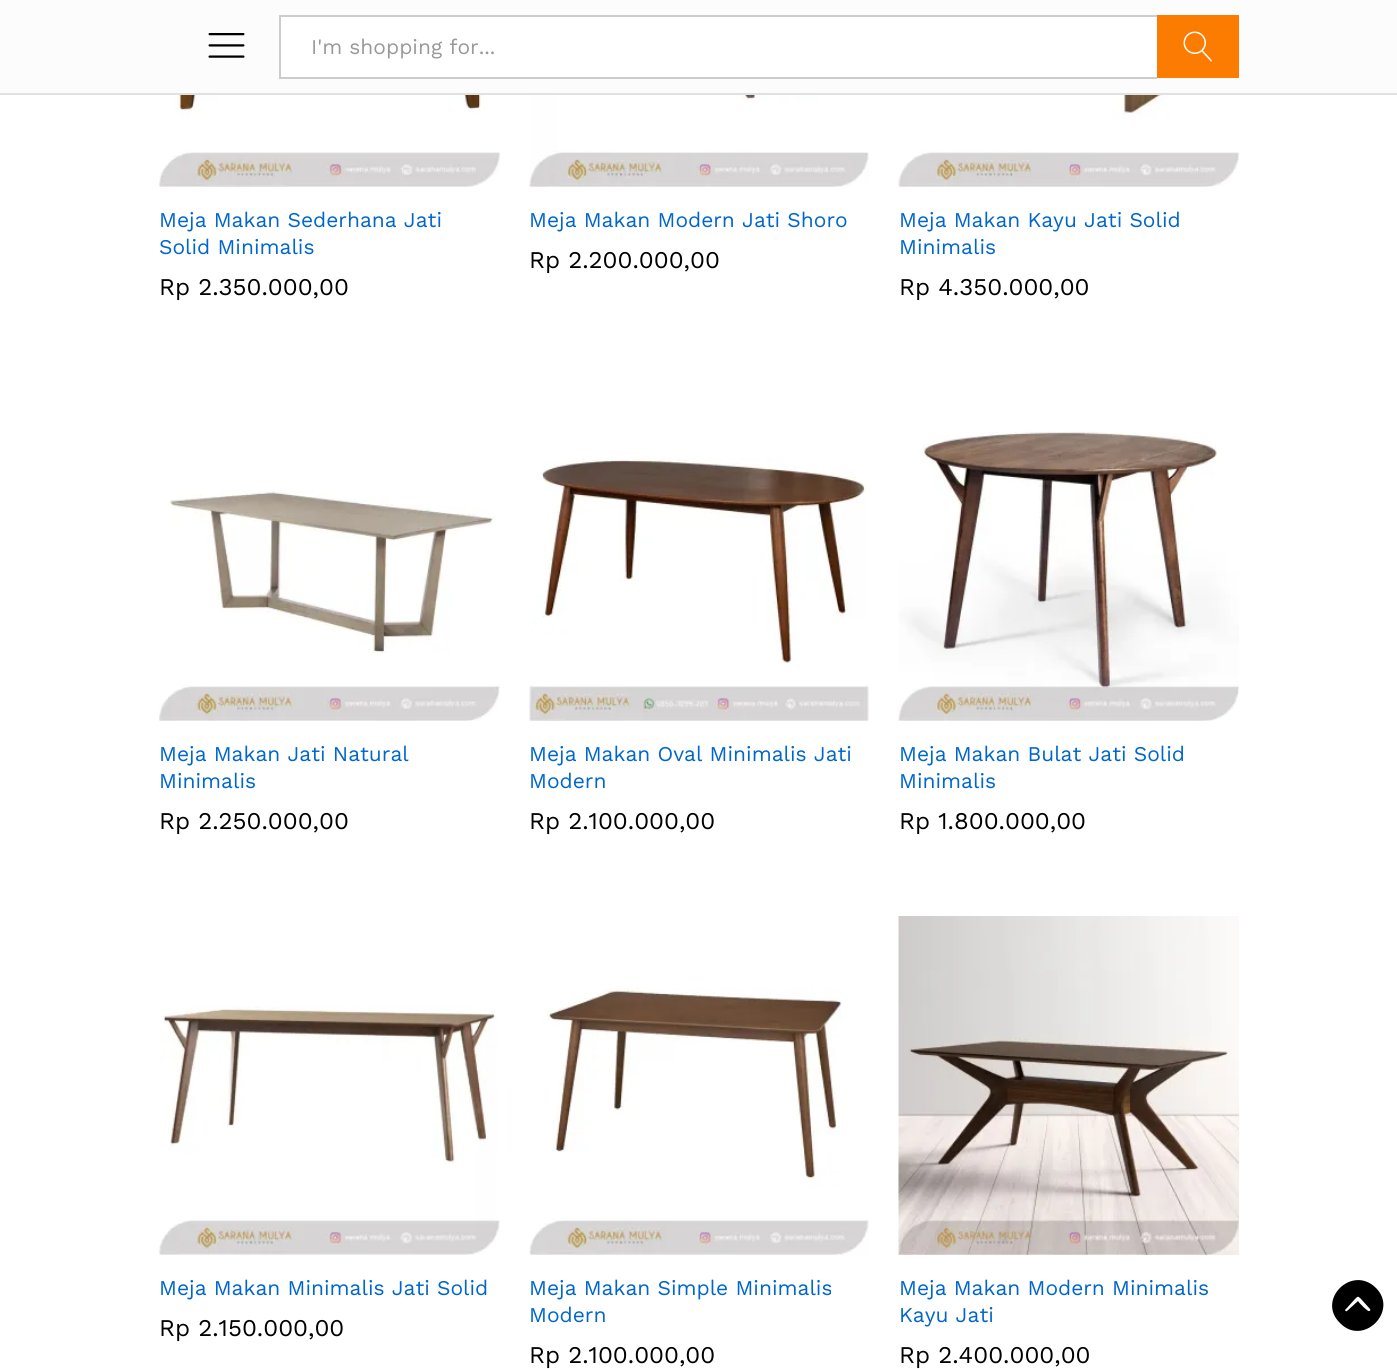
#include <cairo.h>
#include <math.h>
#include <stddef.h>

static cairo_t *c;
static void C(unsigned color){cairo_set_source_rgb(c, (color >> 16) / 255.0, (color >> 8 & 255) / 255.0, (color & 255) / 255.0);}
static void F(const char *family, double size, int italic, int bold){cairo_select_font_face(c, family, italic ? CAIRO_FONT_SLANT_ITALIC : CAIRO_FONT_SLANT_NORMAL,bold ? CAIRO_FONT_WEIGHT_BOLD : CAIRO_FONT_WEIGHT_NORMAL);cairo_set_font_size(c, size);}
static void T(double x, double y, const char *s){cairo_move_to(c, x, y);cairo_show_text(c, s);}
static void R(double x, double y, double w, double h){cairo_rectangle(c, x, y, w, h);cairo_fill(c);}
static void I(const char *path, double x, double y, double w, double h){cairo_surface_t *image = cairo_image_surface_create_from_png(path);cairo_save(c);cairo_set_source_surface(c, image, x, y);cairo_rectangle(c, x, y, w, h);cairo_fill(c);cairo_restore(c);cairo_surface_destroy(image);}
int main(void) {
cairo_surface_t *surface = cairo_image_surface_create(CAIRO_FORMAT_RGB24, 1397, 1369);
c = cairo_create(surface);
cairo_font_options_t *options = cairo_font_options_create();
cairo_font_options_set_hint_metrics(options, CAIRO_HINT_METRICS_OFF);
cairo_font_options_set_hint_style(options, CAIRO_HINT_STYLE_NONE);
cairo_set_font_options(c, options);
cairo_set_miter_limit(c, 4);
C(0xffffff);
cairo_paint(c);
C(0xfcfcfc);
R(0,0,1397,93);
C(0xe1e1e1);
R(0,93,1397,2);
I("1.png",208,33,37,25);
C(0xffffff);
R(281,17,876,60);
C(0xcccccc);
R(279,15,878,2);
R(279,77,878,2);
R(279,15,2,63);
F("Work Sans",21,0,0);
C(0x999999);
T(311,54,"I'm shopping for...");
C(0xfb7c00);
R(1157,15,82,63);
I("2.png",1183,31,29,31);
I("3.png",159,95,341,92);
C(0x0066cc);
T(159,227,"Meja Makan Sederhana Jati");
T(159,254,"Solid Minimalis");
F("Work Sans",24,0,0);
C(0x000000);
T(159,295,"Rp 2.350.000,00");
I("4.png",529,95,340,92);
F("Work Sans",21,0,0);
C(0x0066cc);
T(529,227,"Meja Makan Modern Jati Shoro");
F("Work Sans",24,0,0);
C(0x000000);
T(529,268,"Rp 2.200.000,00");
I("5.png",898,95,341,92);
F("Work Sans",21,0,0);
C(0x0066cc);
T(899,227,"Meja Makan Kayu Jati Solid");
T(899,254,"Minimalis");
F("Work Sans",24,0,0);
C(0x000000);
T(899,295,"Rp 4.350.000,00");
I("6.png",159,490,341,231);
F("Work Sans",21,0,0);
C(0x0066cc);
T(159,761,"Meja Makan Jati Natural");
T(159,788,"Minimalis");
F("Work Sans",24,0,0);
C(0x000000);
T(159,829,"Rp 2.250.000,00");
I("7.png",529,458,340,263);
F("Work Sans",21,0,0);
C(0x0066cc);
T(529,761,"Meja Makan Oval Minimalis Jati");
T(529,788,"Modern");
F("Work Sans",24,0,0);
C(0x000000);
T(529,829,"Rp 2.100.000,00");
I("8.png",898,431,341,290);
F("Work Sans",21,0,0);
C(0x0066cc);
T(899,761,"Meja Makan Bulat Jati Solid");
T(899,788,"Minimalis");
F("Work Sans",24,0,0);
C(0x000000);
T(899,829,"Rp 1.800.000,00");
I("9.png",159,1006,341,249);
F("Work Sans",21,0,0);
C(0x0066cc);
T(159,1295,"Meja Makan Minimalis Jati Solid");
F("Work Sans",24,0,0);
C(0x000000);
T(159,1336,"Rp 2.150.000,00");
I("10.png",529,988,340,267);
F("Work Sans",21,0,0);
C(0x0066cc);
T(529,1295,"Meja Makan Simple Minimalis");
T(529,1322,"Modern");
F("Work Sans",24,0,0);
C(0x000000);
T(529,1363,"Rp 2.100.000,00");
I("11.png",898,916,341,339);
F("Work Sans",21,0,0);
C(0x0066cc);
T(899,1295,"Meja Makan Modern Minimalis");
T(899,1322,"Kayu Jati");
F("Work Sans",24,0,0);
C(0x000000);
T(899,1363,"Rp 2.400.000,00");
cairo_new_path(c);
cairo_move_to(c,1340,1323);
cairo_curve_to(c,1363,1347,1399,1311,1376,1288);
cairo_curve_to(c,1352,1264,1316,1300,1340,1323);
cairo_close_path(c);
cairo_move_to(c,1346,1309);
cairo_line_to(c,1355,1299);
cairo_curve_to(c,1358,1296,1358,1296,1361,1299);
cairo_line_to(c,1370,1309);
cairo_curve_to(c,1371,1310,1370,1311,1369,1311);
cairo_curve_to(c,1368,1312,1359,1303,1358,1301);
cairo_line_to(c,1347,1311);
cairo_curve_to(c,1346,1312,1344,1310,1346,1309);
cairo_close_path(c);
cairo_fill(c);
cairo_surface_write_to_png(surface, "o.png");
cairo_font_options_destroy(options);
cairo_destroy(c);
cairo_surface_destroy(surface);
return 0;
}
